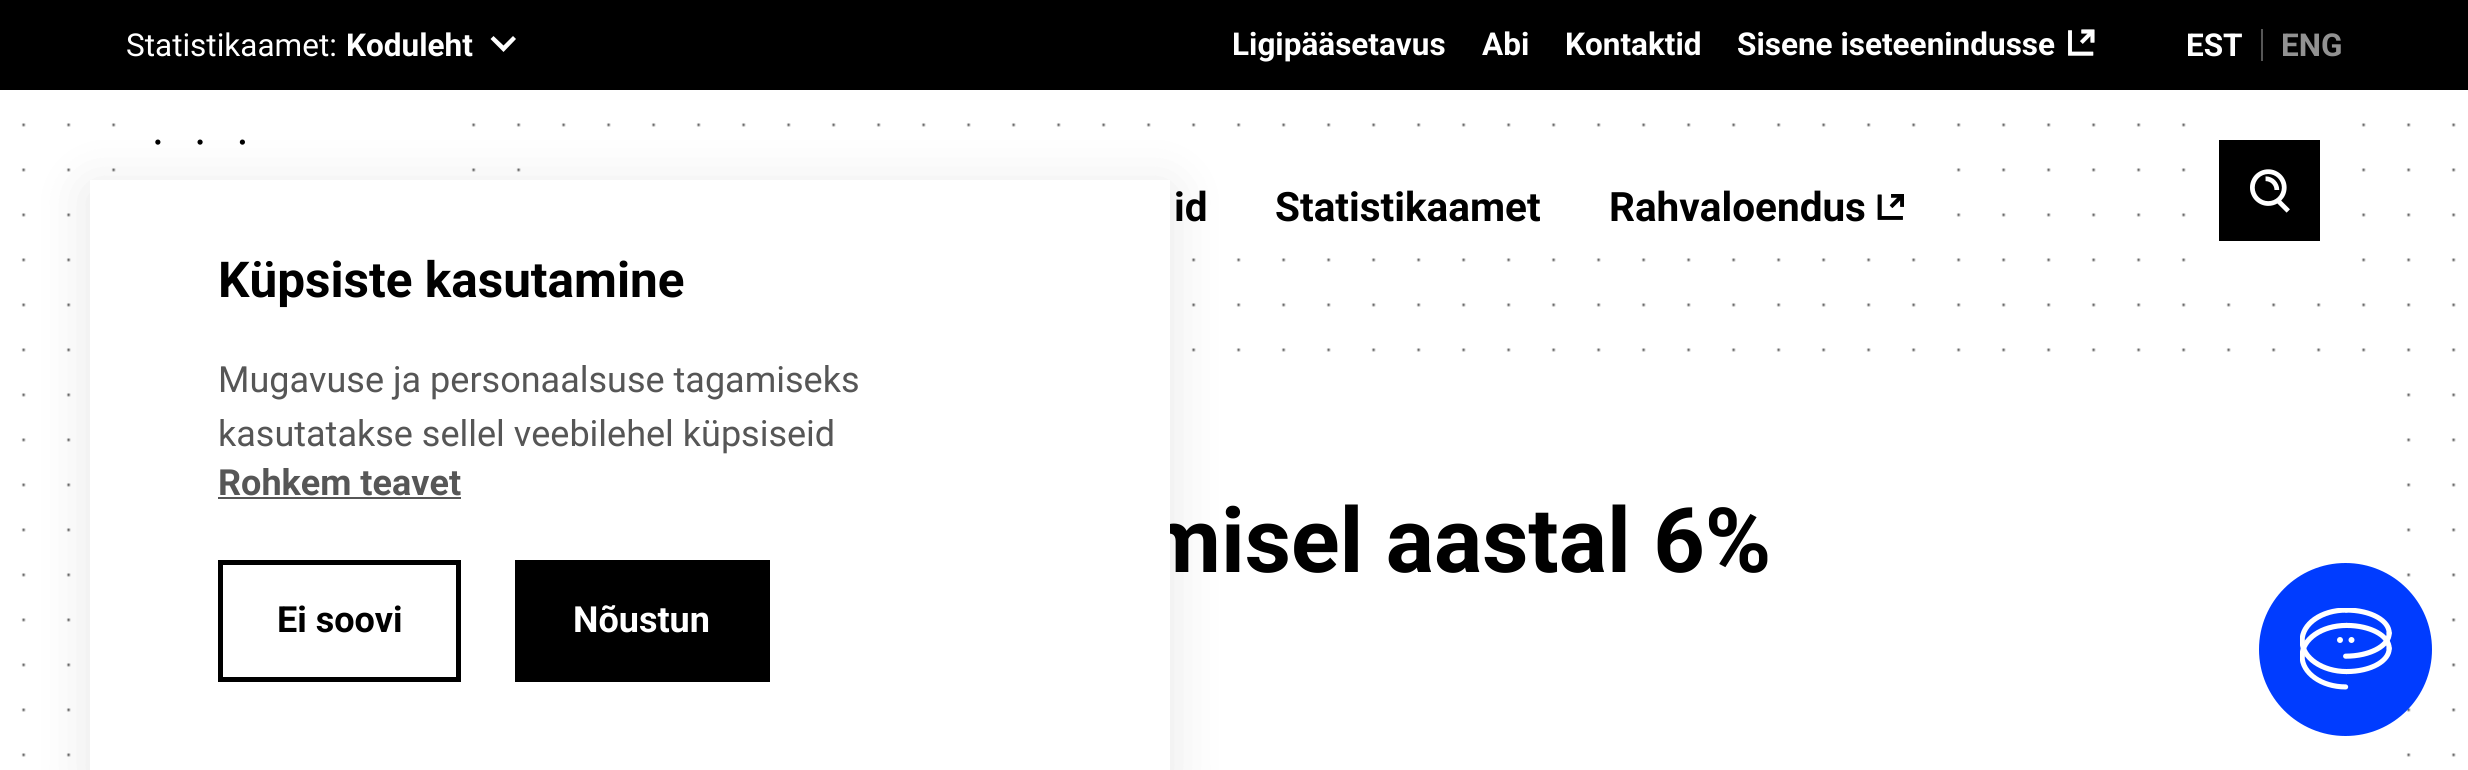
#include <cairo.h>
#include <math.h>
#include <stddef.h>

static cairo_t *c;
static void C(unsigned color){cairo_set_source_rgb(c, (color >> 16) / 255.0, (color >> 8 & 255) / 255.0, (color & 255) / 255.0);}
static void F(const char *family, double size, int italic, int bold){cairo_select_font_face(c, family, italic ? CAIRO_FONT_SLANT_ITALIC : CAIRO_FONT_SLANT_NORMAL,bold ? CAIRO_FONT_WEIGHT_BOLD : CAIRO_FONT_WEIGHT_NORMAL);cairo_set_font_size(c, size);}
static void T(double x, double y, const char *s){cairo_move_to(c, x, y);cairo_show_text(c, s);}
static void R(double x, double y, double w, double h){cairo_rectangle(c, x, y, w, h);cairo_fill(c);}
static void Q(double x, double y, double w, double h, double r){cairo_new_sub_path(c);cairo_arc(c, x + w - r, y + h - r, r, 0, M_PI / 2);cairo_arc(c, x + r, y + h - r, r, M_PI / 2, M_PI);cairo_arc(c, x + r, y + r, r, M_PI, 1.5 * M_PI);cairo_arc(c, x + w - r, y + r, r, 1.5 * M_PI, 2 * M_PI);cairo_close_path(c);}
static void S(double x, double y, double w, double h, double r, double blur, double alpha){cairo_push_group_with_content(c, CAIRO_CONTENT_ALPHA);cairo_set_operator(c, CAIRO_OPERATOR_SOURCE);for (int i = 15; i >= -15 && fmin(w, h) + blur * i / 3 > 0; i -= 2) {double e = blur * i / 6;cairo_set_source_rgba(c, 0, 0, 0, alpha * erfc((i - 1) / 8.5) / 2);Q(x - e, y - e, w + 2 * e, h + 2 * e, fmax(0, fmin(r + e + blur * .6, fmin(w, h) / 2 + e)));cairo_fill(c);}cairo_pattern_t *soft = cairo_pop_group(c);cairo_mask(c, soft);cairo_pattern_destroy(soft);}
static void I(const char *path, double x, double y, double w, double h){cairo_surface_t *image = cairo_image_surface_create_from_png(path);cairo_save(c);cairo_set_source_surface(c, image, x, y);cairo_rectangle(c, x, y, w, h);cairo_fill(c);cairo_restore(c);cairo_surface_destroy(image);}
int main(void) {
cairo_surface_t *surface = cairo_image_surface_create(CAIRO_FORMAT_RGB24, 2468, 770);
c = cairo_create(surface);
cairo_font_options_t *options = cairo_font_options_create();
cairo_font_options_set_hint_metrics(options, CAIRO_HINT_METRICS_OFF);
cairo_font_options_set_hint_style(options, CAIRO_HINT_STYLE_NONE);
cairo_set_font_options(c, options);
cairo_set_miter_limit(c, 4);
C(0xffffff);
cairo_paint(c);
I("1.png",21,123,2435,634);
C(0x000000);
R(0,0,2468,90);
F("Roboto",31.5,0,0);
C(0xffffff);
T(126,56,"Statistikaamet:");
F("Roboto",31.5,0,1);
T(346,56,"Koduleht");
cairo_set_fill_rule(c,CAIRO_FILL_RULE_EVEN_ODD);
cairo_new_path(c);
cairo_move_to(c,503.5,45.5);
cairo_line_to(c,493.5,36);
cairo_line_to(c,490.5,39);
cairo_line_to(c,503.5,52);
cairo_line_to(c,516,39);
cairo_line_to(c,513,36);
cairo_close_path(c);
cairo_fill(c);
T(1232,55,"Ligipääsetavus");
T(1482,55,"Abi");
T(1565,55,"Kontaktid");
T(1737,55,"Sisene iseteenindusse");
I("2.png",2068,29,27,27);
T(2186,56,"EST");
C(0x565656);
R(2261,29,2,32);
C(0x929292);
T(2281,56,"ENG");
I("3.png",155,123,276,57);
C(0xffffff);
R(561,168,1355,49);
F("Roboto",40.5,0,1);
C(0x000000);
T(1174,221,"id");
T(1275,221,"Statistikaamet");
T(1609,221,"Rahvaloendus");
I("4.png",1877,194,27,26);
C(0xffffff);
R(2226,123,95,139);
C(0x000000);
R(2219,140,101,101);
I("5.png",2250,169,40,44);
C(0xffffff);
R(1191,393,1175,364);
F("Roboto",90,0,1);
C(0x000000);
T(1143,572,"misel aastal 6%");
C(0x000000);
S(90,189,1080,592,0,27,.1);
C(0xffffff);
R(90,180,1080,590);
F("Roboto",49.5,0,1);
C(0x000000);
T(218,297,"Küpsiste kasutamine");
F("Roboto",36,0,0);
C(0x565656);
T(218,392,"Mugavuse ja personaalsuse tagamiseks");
T(218,446,"kasutatakse sellel veebilehel küpsiseid");
F("Roboto",36,0,1);
T(218,495,"Rohkem teavet");
R(218,497,243,2);
cairo_rectangle(c,220.5,562.5,238,117);
C(0x000000);
cairo_set_line_width(c,5);
cairo_stroke(c);
T(277,632,"Ei soovi");
R(515,560,255,122);
C(0xffffff);
T(573,632,"Nõustun");
C(0x003cff);
cairo_new_path(c);
cairo_arc(c,2345.5,649.5,84,0,2 * M_PI);
cairo_fill_preserve(c);
cairo_stroke(c);
I("6.png",2300,608,92,82);
cairo_surface_write_to_png(surface, "o.png");
cairo_font_options_destroy(options);
cairo_destroy(c);
cairo_surface_destroy(surface);
return 0;
}
